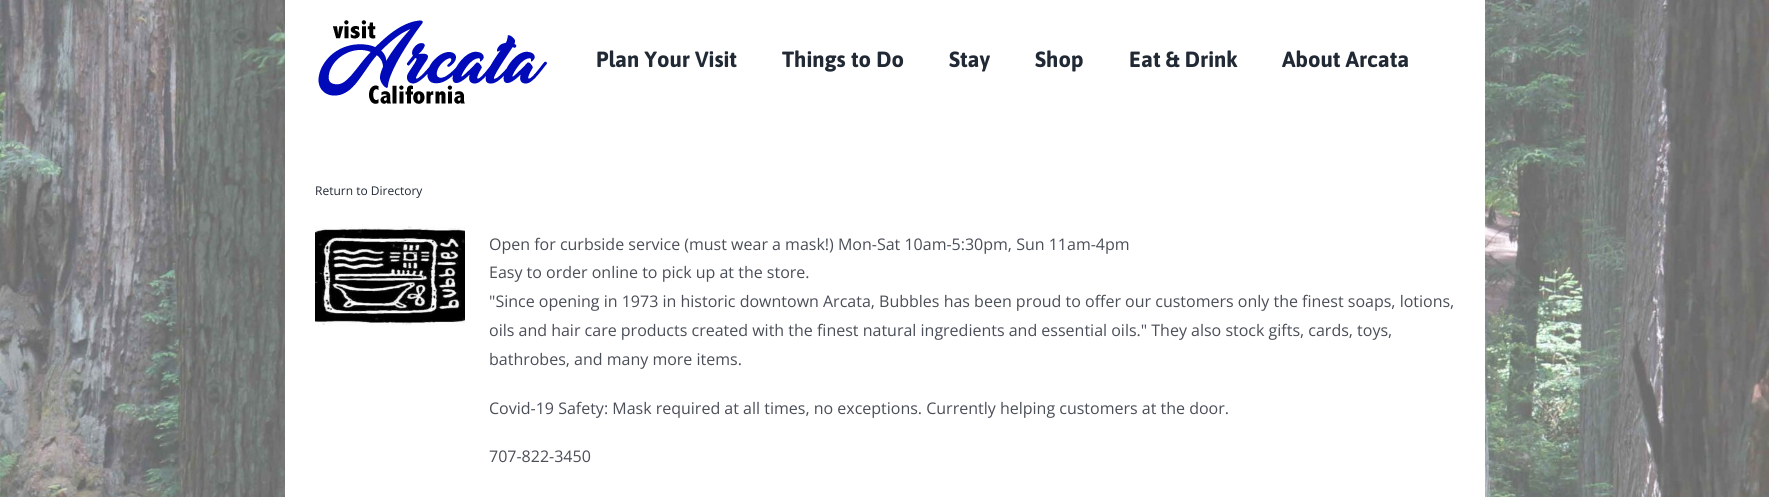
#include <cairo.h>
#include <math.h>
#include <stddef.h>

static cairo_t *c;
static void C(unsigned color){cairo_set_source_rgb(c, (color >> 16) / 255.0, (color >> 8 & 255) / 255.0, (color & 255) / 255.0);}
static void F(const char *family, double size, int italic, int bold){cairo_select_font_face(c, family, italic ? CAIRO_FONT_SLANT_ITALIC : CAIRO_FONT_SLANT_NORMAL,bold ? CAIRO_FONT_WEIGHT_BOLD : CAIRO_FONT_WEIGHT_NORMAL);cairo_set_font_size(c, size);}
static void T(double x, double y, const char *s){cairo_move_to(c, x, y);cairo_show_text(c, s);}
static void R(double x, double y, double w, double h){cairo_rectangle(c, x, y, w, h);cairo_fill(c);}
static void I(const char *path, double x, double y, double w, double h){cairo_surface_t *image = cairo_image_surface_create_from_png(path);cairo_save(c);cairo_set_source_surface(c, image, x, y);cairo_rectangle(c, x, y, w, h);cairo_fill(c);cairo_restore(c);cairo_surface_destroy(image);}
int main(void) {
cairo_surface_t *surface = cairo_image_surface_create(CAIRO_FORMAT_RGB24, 1769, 497);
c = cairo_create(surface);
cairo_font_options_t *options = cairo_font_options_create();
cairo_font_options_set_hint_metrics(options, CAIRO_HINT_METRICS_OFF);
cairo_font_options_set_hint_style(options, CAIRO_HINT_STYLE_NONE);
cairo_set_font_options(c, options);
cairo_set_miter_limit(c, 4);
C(0xffffff);
cairo_paint(c);
I("1.png",0,0,1769,497);
C(0xffffff);
R(285,0,1200,497);
I("2.png",318,20,229,84);
F("Asap",22,0,1);
C(0x212934);
T(596,67,"Plan Your Visit");
T(782,67,"Things to Do");
T(949,67,"Stay");
T(1035,67,"Shop");
T(1129,67,"Eat & Drink");
T(1282,67,"About Arcata");
F("Open Sans",12,0,0);
T(315,195,"Return to Directory");
I("3.png",315,226,150,100);
F("Open Sans",16,0,0);
C(0x4a4e57);
T(489,250,"Open for curbside service (must wear a mask!) Mon-Sat 10am-5:30pm, Sun 11am-4pm");
T(489,278,"Easy to order online to pick up at the store.");
T(489,307,"\"Since opening in 1973 in historic downtown Arcata, Bubbles has been proud to offer our customers only the finest soaps, lotions,");
T(489,336,"oils and hair care products created with the finest natural ingredients and essential oils.\" They also stock gifts, cards, toys,");
T(489,365,"bathrobes, and many more items.");
T(489,414,"Covid-19 Safety: Mask required at all times, no exceptions. Currently helping customers at the door.");
T(489,462,"707-822-3450");
cairo_surface_write_to_png(surface, "o.png");
cairo_font_options_destroy(options);
cairo_destroy(c);
cairo_surface_destroy(surface);
return 0;
}
